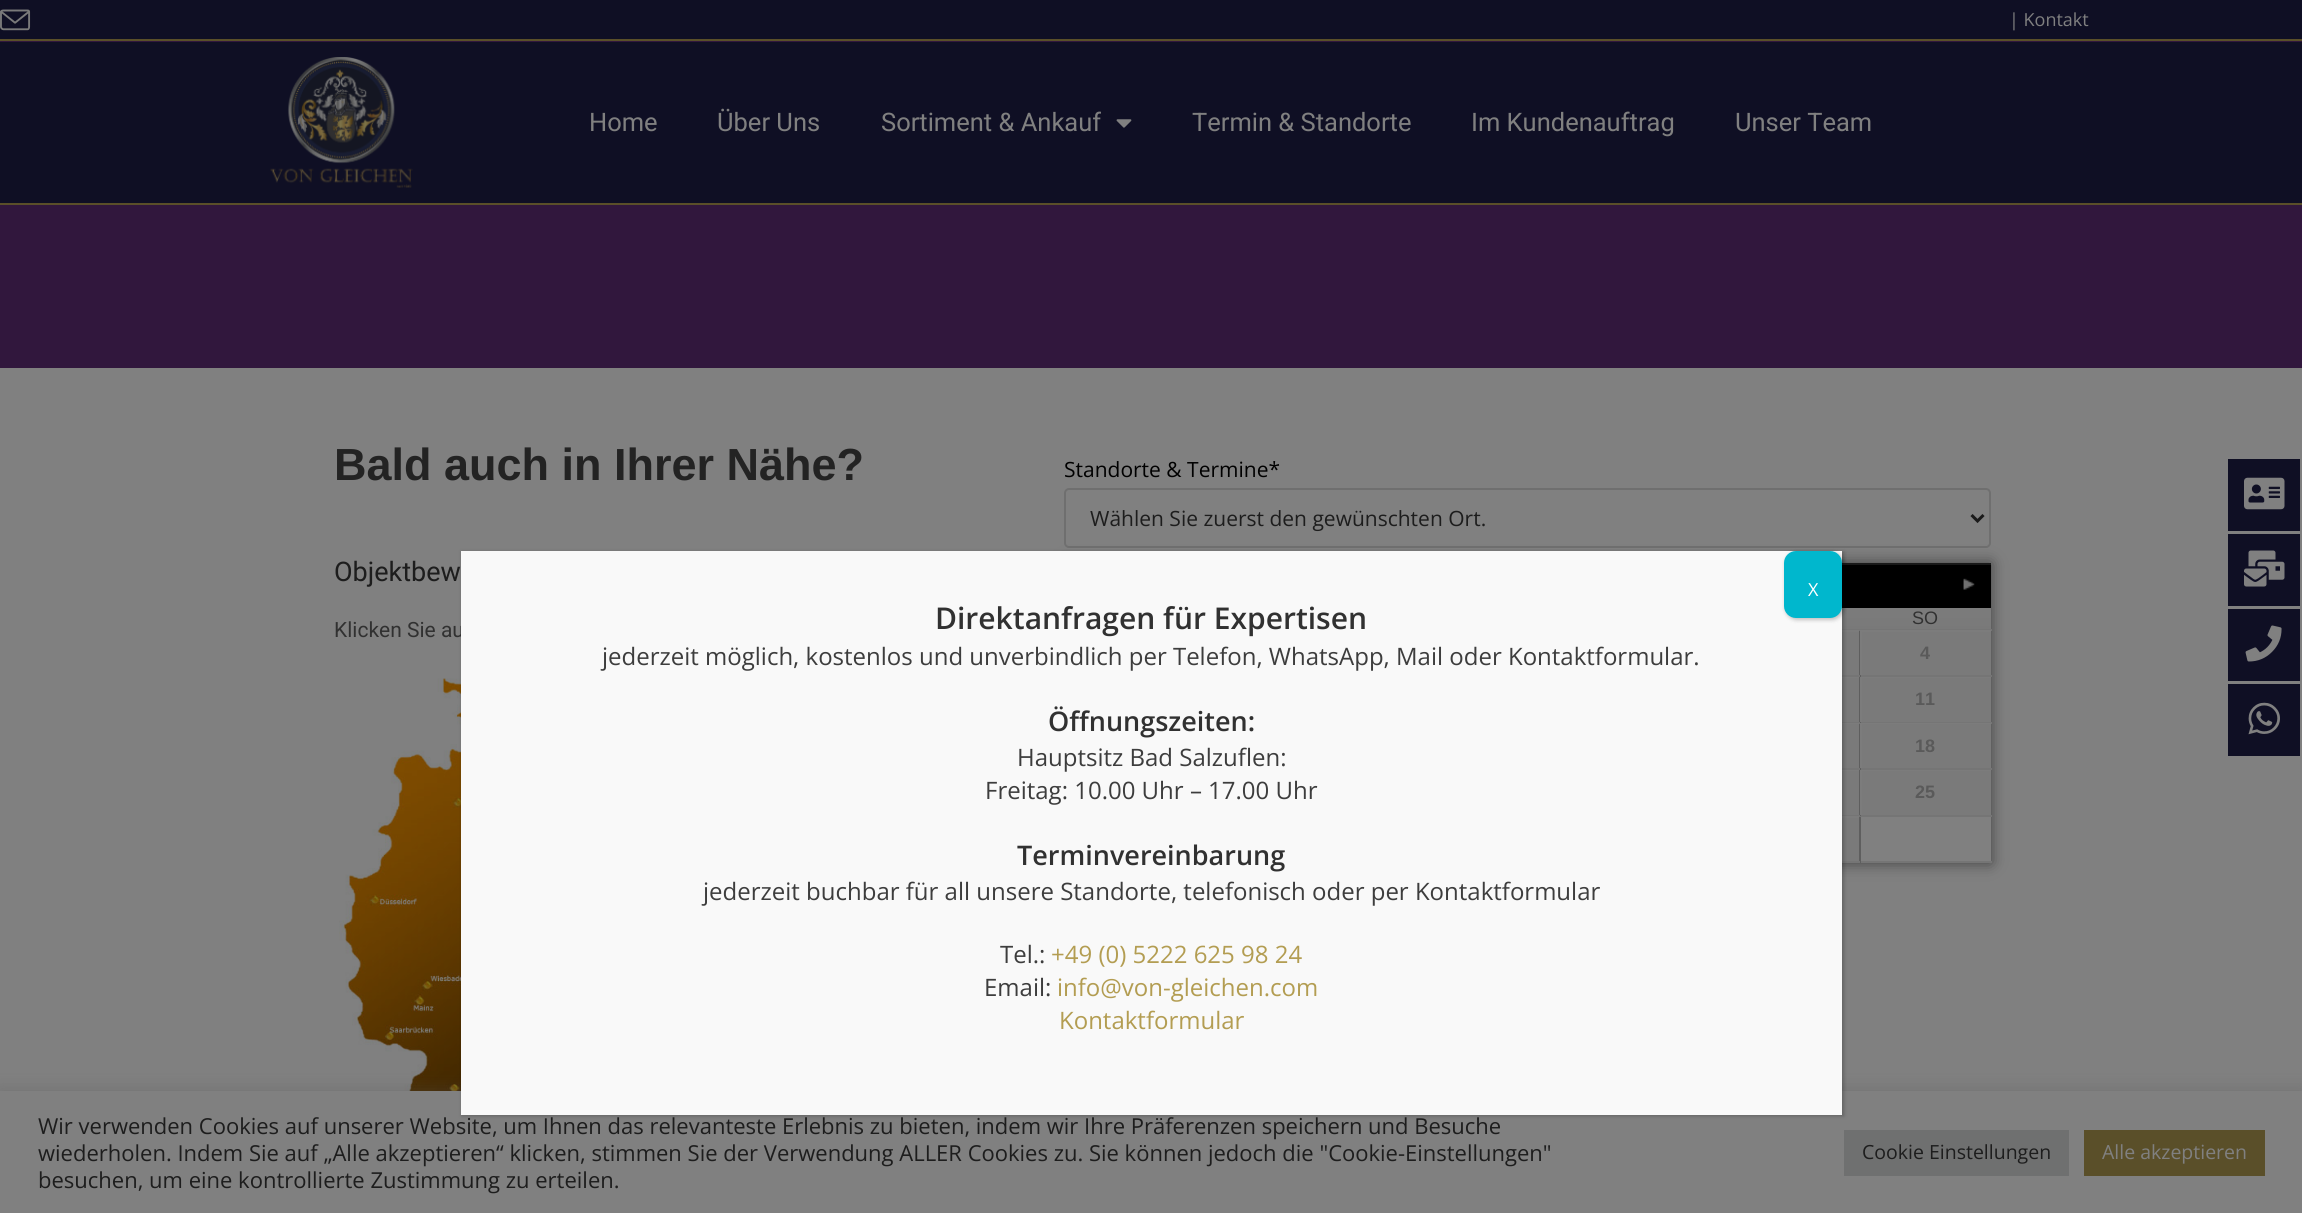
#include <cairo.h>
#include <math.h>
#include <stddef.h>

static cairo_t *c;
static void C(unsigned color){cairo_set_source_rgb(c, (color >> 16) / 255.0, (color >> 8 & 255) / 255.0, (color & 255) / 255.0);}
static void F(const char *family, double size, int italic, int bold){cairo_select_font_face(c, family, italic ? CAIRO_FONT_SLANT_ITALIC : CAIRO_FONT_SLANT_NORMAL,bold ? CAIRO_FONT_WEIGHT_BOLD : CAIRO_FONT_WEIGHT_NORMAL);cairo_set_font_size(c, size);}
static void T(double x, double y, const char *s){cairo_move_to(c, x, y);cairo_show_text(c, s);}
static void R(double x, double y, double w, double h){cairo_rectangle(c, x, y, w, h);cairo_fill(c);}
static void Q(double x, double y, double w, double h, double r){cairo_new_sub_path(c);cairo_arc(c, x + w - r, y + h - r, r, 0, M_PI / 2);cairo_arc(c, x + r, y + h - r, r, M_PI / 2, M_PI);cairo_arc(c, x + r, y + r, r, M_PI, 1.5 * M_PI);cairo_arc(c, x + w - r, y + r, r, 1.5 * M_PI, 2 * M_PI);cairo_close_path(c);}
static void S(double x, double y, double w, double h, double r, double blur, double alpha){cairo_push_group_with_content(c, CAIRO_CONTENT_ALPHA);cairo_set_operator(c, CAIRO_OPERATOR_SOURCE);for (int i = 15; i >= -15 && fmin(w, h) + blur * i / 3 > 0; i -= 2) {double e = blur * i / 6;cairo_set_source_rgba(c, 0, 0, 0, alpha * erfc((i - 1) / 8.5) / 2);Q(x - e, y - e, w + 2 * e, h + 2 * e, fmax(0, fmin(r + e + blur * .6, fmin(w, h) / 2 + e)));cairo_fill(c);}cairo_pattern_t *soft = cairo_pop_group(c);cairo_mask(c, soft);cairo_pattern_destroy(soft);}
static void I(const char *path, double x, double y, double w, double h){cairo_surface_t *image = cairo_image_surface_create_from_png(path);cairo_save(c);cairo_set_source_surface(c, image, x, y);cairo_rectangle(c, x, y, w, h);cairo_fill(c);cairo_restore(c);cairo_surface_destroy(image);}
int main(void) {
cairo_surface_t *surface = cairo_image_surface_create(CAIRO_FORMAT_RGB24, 2302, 1213);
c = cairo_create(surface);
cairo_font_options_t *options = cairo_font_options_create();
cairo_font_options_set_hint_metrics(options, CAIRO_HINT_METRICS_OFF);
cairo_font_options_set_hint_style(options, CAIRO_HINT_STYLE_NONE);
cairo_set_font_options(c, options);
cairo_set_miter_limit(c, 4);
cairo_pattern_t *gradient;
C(0x808080);
cairo_paint(c);
C(0x0f0f24);
R(0,0,2302,39);
C(0x5a4f29);
R(0,39,2302,2);
I("1.png",0,9,31,22);
F("Open Sans",18,0,0);
C(0x808080);
T(2009,26,"| Kontakt");
C(0x31173d);
R(0,41,2302,327);
C(0x5a4f29);
R(0,203,2302,2);
C(0x0f0f24);
R(0,42,2302,161);
I("2.png",270,57,143,131);
F("Roboto",25.5,0,0);
C(0x808080);
T(589,131,"Home");
T(717,131,"Über Uns");
T(881,131,"Sortiment & Ankauf");
I("3.png",1116,119,16,9);
T(1192,131,"Termin & Standorte");
T(1471,131,"Im Kundenauftrag");
T(1735,131,"Unser Team");
F("Liberation Sans",45,0,1);
C(0x232323);
T(334,480,"Bald auch in Ihrer Nähe?");
F("Roboto",27,0,0);
C(0x1d1d1d);
T(334,581,"Objektbew");
F("Roboto",21,0,0);
C(0x313131);
T(334,637,"Klicken Sie au");
I("4.png",333,678,128,413);
F("Open Sans",21,0,0);
C(0x000000);
T(1064,477,"Standorte & Termine*");
Q(1065,489,925,58,4);
C(0x6f6f6f);
cairo_stroke(c);
cairo_new_path(c);
cairo_move_to(c,1971.5,515);
cairo_line_to(c,1977.5,521);
cairo_line_to(c,1983.5,515);
C(0x1a1a1a);
cairo_set_line_width(c,3);
cairo_stroke(c);
C(0x1d1d1d);
T(1090,526,"Wählen Sie zuerst den gewünschten Ort.");
cairo_save(c);
cairo_set_fill_rule(c,CAIRO_FILL_RULE_EVEN_ODD);
cairo_new_path(c);
cairo_move_to(c,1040,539);
cairo_line_to(c,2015,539);
cairo_line_to(c,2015,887);
cairo_line_to(c,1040,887);
cairo_close_path(c);
cairo_move_to(c,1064,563);
cairo_line_to(c,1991,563);
cairo_line_to(c,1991,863);
cairo_line_to(c,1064,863);
cairo_close_path(c);
cairo_clip(c);
C(0x000000);
S(1064,563,927,300,0,7.5,.5);
cairo_restore(c);
C(0x000000);
R(1842,565,149,43);
C(0x191919);
R(1842,563,149,2);
I("5.png",1963,578,12,12);
gradient = cairo_pattern_create_linear(1527,607,1527,629);
cairo_pattern_add_color_stop_rgba(gradient,0,0.486,0.486,0.486,1);
cairo_pattern_add_color_stop_rgba(gradient,1,0.475,0.475,0.475,1);
cairo_set_source(c,gradient);
cairo_pattern_destroy(gradient);
R(1842,608,149,21);
C(0x757575);
R(1859,861,133,2);
C(0x5e5e5e);
R(1859,815,2,48);
C(0x757575);
R(1859,815,133,2);
C(0x5e5e5e);
R(1859,768,2,48);
C(0x757575);
R(1859,768,133,2);
C(0x5e5e5e);
R(1859,722,2,48);
C(0x757575);
R(1859,722,133,2);
C(0x5e5e5e);
R(1859,675,2,48);
C(0x757575);
R(1859,675,133,2);
C(0x5e5e5e);
R(1859,629,2,48);
C(0x757575);
R(1842,629,150,2);
F("Liberation Sans",18,0,0);
C(0x313131);
T(1912,624,"SO");
C(0x757575);
R(1842,675,18,2);
C(0x7a7a7a);
R(1842,632,17,43);
cairo_save(c);
cairo_rectangle(c,1727,630,132,45);
cairo_clip(c);
C(0x7c7c7c);
cairo_set_fill_rule(c,CAIRO_FILL_RULE_EVEN_ODD);
cairo_new_path(c);
cairo_move_to(c,1578,482);
cairo_line_to(c,2007,482);
cairo_line_to(c,2007,824);
cairo_line_to(c,1578,824);
cairo_close_path(c);
cairo_move_to(c,1728,632);
cairo_line_to(c,1860,632);
cairo_line_to(c,1860,676);
cairo_line_to(c,1728,676);
cairo_close_path(c);
cairo_fill(c);
cairo_restore(c);
R(1862,632,129,43);
cairo_save(c);
cairo_rectangle(c,1860,630,131,45);
cairo_clip(c);
C(0x7c7c7c);
cairo_set_fill_rule(c,CAIRO_FILL_RULE_EVEN_ODD);
cairo_new_path(c);
cairo_move_to(c,1712,482);
cairo_line_to(c,2139,482);
cairo_line_to(c,2139,824);
cairo_line_to(c,1712,824);
cairo_close_path(c);
cairo_move_to(c,1862,632);
cairo_line_to(c,1992,632);
cairo_line_to(c,1992,676);
cairo_line_to(c,1862,676);
cairo_close_path(c);
cairo_fill(c);
cairo_restore(c);
F("Liberation Sans",18,0,1);
C(0x5a5a5a);
T(1920,659,"4");
C(0x757575);
R(1842,722,18,2);
C(0x7a7a7a);
R(1842,678,17,44);
cairo_save(c);
cairo_rectangle(c,1727,677,132,45);
cairo_clip(c);
C(0x7c7c7c);
cairo_set_fill_rule(c,CAIRO_FILL_RULE_EVEN_ODD);
cairo_new_path(c);
cairo_move_to(c,1578,528);
cairo_line_to(c,2007,528);
cairo_line_to(c,2007,870);
cairo_line_to(c,1578,870);
cairo_close_path(c);
cairo_move_to(c,1728,678);
cairo_line_to(c,1860,678);
cairo_line_to(c,1860,723);
cairo_line_to(c,1728,723);
cairo_close_path(c);
cairo_fill(c);
cairo_restore(c);
R(1862,678,129,44);
cairo_save(c);
cairo_rectangle(c,1860,677,131,45);
cairo_clip(c);
C(0x7c7c7c);
cairo_set_fill_rule(c,CAIRO_FILL_RULE_EVEN_ODD);
cairo_new_path(c);
cairo_move_to(c,1712,528);
cairo_line_to(c,2139,528);
cairo_line_to(c,2139,870);
cairo_line_to(c,1712,870);
cairo_close_path(c);
cairo_move_to(c,1862,678);
cairo_line_to(c,1992,678);
cairo_line_to(c,1992,723);
cairo_line_to(c,1862,723);
cairo_close_path(c);
cairo_fill(c);
cairo_restore(c);
C(0x5a5a5a);
T(1915,705,"11");
C(0x757575);
R(1842,768,18,2);
C(0x7a7a7a);
R(1842,724,17,44);
cairo_save(c);
cairo_rectangle(c,1727,723,132,45);
cairo_clip(c);
C(0x7c7c7c);
cairo_set_fill_rule(c,CAIRO_FILL_RULE_EVEN_ODD);
cairo_new_path(c);
cairo_move_to(c,1578,574);
cairo_line_to(c,2007,574);
cairo_line_to(c,2007,916);
cairo_line_to(c,1578,916);
cairo_close_path(c);
cairo_move_to(c,1728,724);
cairo_line_to(c,1860,724);
cairo_line_to(c,1860,770);
cairo_line_to(c,1728,770);
cairo_close_path(c);
cairo_fill(c);
cairo_restore(c);
R(1862,724,129,44);
cairo_save(c);
cairo_rectangle(c,1860,723,131,45);
cairo_clip(c);
C(0x7c7c7c);
cairo_set_fill_rule(c,CAIRO_FILL_RULE_EVEN_ODD);
cairo_new_path(c);
cairo_move_to(c,1712,574);
cairo_line_to(c,2139,574);
cairo_line_to(c,2139,916);
cairo_line_to(c,1712,916);
cairo_close_path(c);
cairo_move_to(c,1862,724);
cairo_line_to(c,1992,724);
cairo_line_to(c,1992,770);
cairo_line_to(c,1862,770);
cairo_close_path(c);
cairo_fill(c);
cairo_restore(c);
C(0x5a5a5a);
T(1915,752,"18");
C(0x757575);
R(1842,815,18,2);
C(0x7a7a7a);
R(1842,771,17,44);
cairo_save(c);
cairo_rectangle(c,1727,770,132,45);
cairo_clip(c);
C(0x7c7c7c);
cairo_set_fill_rule(c,CAIRO_FILL_RULE_EVEN_ODD);
cairo_new_path(c);
cairo_move_to(c,1578,621);
cairo_line_to(c,2007,621);
cairo_line_to(c,2007,963);
cairo_line_to(c,1578,963);
cairo_close_path(c);
cairo_move_to(c,1728,771);
cairo_line_to(c,1860,771);
cairo_line_to(c,1860,816);
cairo_line_to(c,1728,816);
cairo_close_path(c);
cairo_fill(c);
cairo_restore(c);
R(1862,771,129,44);
cairo_save(c);
cairo_rectangle(c,1860,770,131,45);
cairo_clip(c);
C(0x7c7c7c);
cairo_set_fill_rule(c,CAIRO_FILL_RULE_EVEN_ODD);
cairo_new_path(c);
cairo_move_to(c,1712,621);
cairo_line_to(c,2139,621);
cairo_line_to(c,2139,963);
cairo_line_to(c,1712,963);
cairo_close_path(c);
cairo_move_to(c,1862,771);
cairo_line_to(c,1992,771);
cairo_line_to(c,1992,816);
cairo_line_to(c,1862,816);
cairo_close_path(c);
cairo_fill(c);
cairo_restore(c);
C(0x5a5a5a);
T(1915,798,"25");
C(0x757575);
R(1842,861,18,2);
C(0x7a7a7a);
R(1842,818,17,43);
cairo_save(c);
cairo_rectangle(c,1727,816,132,45);
cairo_clip(c);
C(0x7c7c7c);
cairo_set_fill_rule(c,CAIRO_FILL_RULE_EVEN_ODD);
cairo_new_path(c);
cairo_move_to(c,1578,668);
cairo_line_to(c,2007,668);
cairo_line_to(c,2007,1010);
cairo_line_to(c,1578,1010);
cairo_close_path(c);
cairo_move_to(c,1728,818);
cairo_line_to(c,1860,818);
cairo_line_to(c,1860,862);
cairo_line_to(c,1728,862);
cairo_close_path(c);
cairo_fill(c);
cairo_restore(c);
C(0x0f0f24);
R(2228,459,72,72);
I("6.png",2244,477,41,33);
R(2228,534,72,72);
I("7.png",2244,550,41,37);
R(2228,609,72,72);
I("8.png",2245,625,37,37);
R(2228,684,72,72);
I("9.png",2248,702,32,33);
C(0x565656);
S(0,1089,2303,123,0,7.5,.3);
C(0x808080);
R(0,1091,2302,122);
C(0x020202);
S(462,552,1382,564,0,2,.23);
C(0xf9f9f9);
R(461,551,1381,564);
C(0x020202);
S(1785,552,59,68,12,2,.23);
C(0x00b7cd);
Q(1784,551,58,67,12);
cairo_fill(c);
F("Open Sans",18,0,0);
C(0xffffff);
T(1808,596,"X");
F("Open Sans SemiBold",30,0,0);
C(0x313131);
T(935,629,"Direktanfragen für Expertisen");
F("Open Sans",24,0,0);
C(0x3d3d3d);
T(602,665,"jederzeit möglich, kostenlos und unverbindlich per Telefon, WhatsApp, Mail oder Kontaktformular.");
F("Open Sans SemiBold",27,0,0);
C(0x313131);
T(1048,731,"Öffnungszeiten:");
F("Open Sans",24,0,0);
C(0x3d3d3d);
T(1017,766,"Hauptsitz Bad Salzuflen:");
T(985,799,"Freitag: 10.00 Uhr – 17.00 Uhr");
F("Open Sans SemiBold",27,0,0);
C(0x313131);
T(1017,865,"Terminvereinbarung");
F("Open Sans",24,0,0);
C(0x3d3d3d);
T(703,900,"jederzeit buchbar für all unsere Standorte, telefonisch oder per Kontaktformular");
T(1000,963,"Tel.:");
C(0xb39d52);
T(1051,963,"+49 (0) 5222 625 98 24");
C(0x3d3d3d);
T(984,996,"Email:");
C(0xb39d52);
T(1057,996,"info@von-gleichen.com");
T(1059,1029,"Kontaktformular");
F("Open Sans",22,0,0);
C(0x1d1d1d);
T(38,1134,"Wir verwenden Cookies auf unserer Website, um Ihnen das relevanteste Erlebnis zu bieten, indem wir Ihre Präferenzen speichern und Besuche");
T(38,1161,"wiederholen. Indem Sie auf „Alle akzeptieren“ klicken, stimmen Sie der Verwendung ALLER Cookies zu. Sie können jedoch die \"Cookie-Einstellungen\"");
T(38,1188,"besuchen, um eine kontrollierte Zustimmung zu erteilen.");
C(0x6f7070);
R(1844,1130,225,46);
F("Open Sans",19.5,0,0);
C(0x1d1d1d);
T(1862,1159,"Cookie Einstellungen");
C(0x5a4f29);
R(2084,1130,181,46);
C(0x808080);
T(2102,1159,"Alle akzeptieren");
cairo_surface_write_to_png(surface, "o.png");
cairo_font_options_destroy(options);
cairo_destroy(c);
cairo_surface_destroy(surface);
return 0;
}
